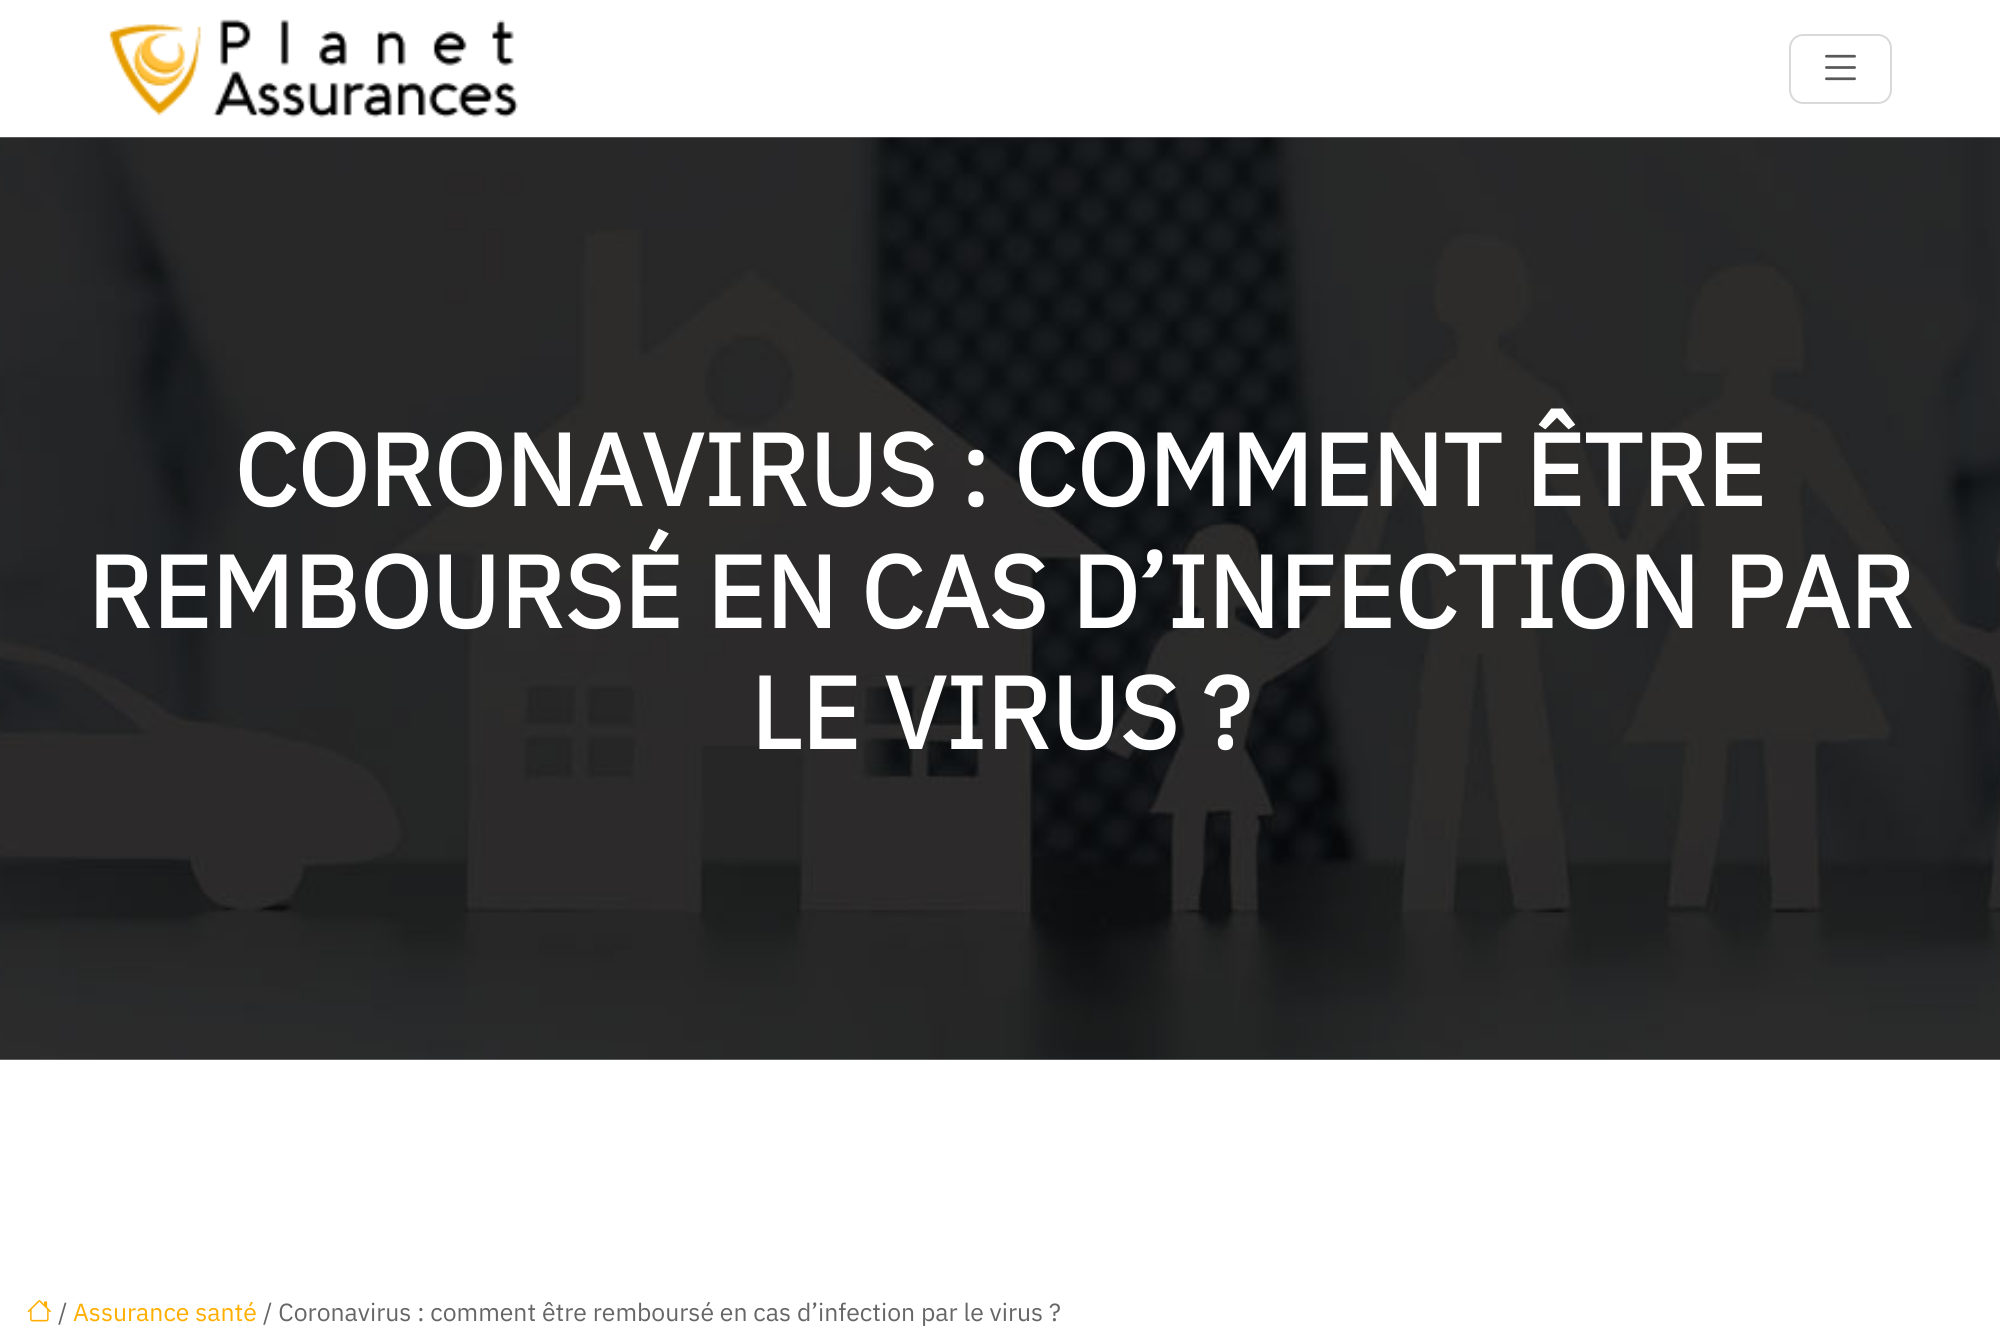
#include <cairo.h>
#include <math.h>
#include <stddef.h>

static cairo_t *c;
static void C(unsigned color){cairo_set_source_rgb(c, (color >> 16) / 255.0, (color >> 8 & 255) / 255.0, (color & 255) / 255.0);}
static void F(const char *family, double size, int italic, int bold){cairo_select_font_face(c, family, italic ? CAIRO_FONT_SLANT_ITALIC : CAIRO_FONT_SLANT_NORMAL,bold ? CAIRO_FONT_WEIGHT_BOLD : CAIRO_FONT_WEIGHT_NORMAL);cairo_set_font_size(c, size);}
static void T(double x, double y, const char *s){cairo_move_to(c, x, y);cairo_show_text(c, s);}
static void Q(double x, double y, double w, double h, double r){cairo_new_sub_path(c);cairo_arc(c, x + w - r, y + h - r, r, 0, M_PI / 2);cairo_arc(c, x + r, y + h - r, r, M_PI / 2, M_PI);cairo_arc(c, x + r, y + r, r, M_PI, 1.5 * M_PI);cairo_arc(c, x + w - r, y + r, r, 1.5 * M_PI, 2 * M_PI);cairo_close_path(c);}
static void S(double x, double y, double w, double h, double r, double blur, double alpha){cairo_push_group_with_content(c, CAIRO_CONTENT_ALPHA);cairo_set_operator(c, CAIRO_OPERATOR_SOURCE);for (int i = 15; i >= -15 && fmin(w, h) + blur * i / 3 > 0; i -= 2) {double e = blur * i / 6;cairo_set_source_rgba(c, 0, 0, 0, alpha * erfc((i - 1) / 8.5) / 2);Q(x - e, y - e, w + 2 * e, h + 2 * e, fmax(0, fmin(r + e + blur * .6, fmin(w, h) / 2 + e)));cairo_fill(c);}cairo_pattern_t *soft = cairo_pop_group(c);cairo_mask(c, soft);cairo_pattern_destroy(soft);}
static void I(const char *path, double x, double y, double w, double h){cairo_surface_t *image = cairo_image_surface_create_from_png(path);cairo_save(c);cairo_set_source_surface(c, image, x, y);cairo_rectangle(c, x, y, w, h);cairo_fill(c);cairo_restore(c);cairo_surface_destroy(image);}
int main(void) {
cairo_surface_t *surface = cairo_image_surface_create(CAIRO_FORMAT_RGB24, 2000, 1330);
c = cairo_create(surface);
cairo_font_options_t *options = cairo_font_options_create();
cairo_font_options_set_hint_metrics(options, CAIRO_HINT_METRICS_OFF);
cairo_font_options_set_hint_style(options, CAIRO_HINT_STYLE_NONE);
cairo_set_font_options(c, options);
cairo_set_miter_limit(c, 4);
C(0xffffff);
cairo_paint(c);
cairo_save(c);
cairo_rectangle(c,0,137,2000,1);
cairo_clip(c);
C(0x000000);
S(0,5,2000,137,0,14.5,.1);
cairo_restore(c);
I("1.png",109,19,409,99);
Q(1790,35,101,68,13);
C(0xd9d9d9);
cairo_stroke(c);
I("2.png",1825,54,31,27);
I("3.png",0,137,2000,923);
F("IBM Plex Sans",101.25,0,1);
C(0xffffff);
T(234,506,"CORONAVIRUS : COMMENT ÊTRE");
T(87,628,"REMBOURSÉ EN CAS D’INFECTION PAR");
T(750,749,"LE VIRUS ?");
I("4.png",27,1300,24,22);
F("IBM Plex Sans",24.75,0,0);
C(0x666666);
T(58,1321,"/");
C(0xffae00);
T(73,1321,"Assurance santé");
C(0x666666);
T(263,1321,"/ Coronavirus : comment être remboursé en cas d’infection par le virus ?");
cairo_surface_write_to_png(surface, "o.png");
cairo_font_options_destroy(options);
cairo_destroy(c);
cairo_surface_destroy(surface);
return 0;
}
